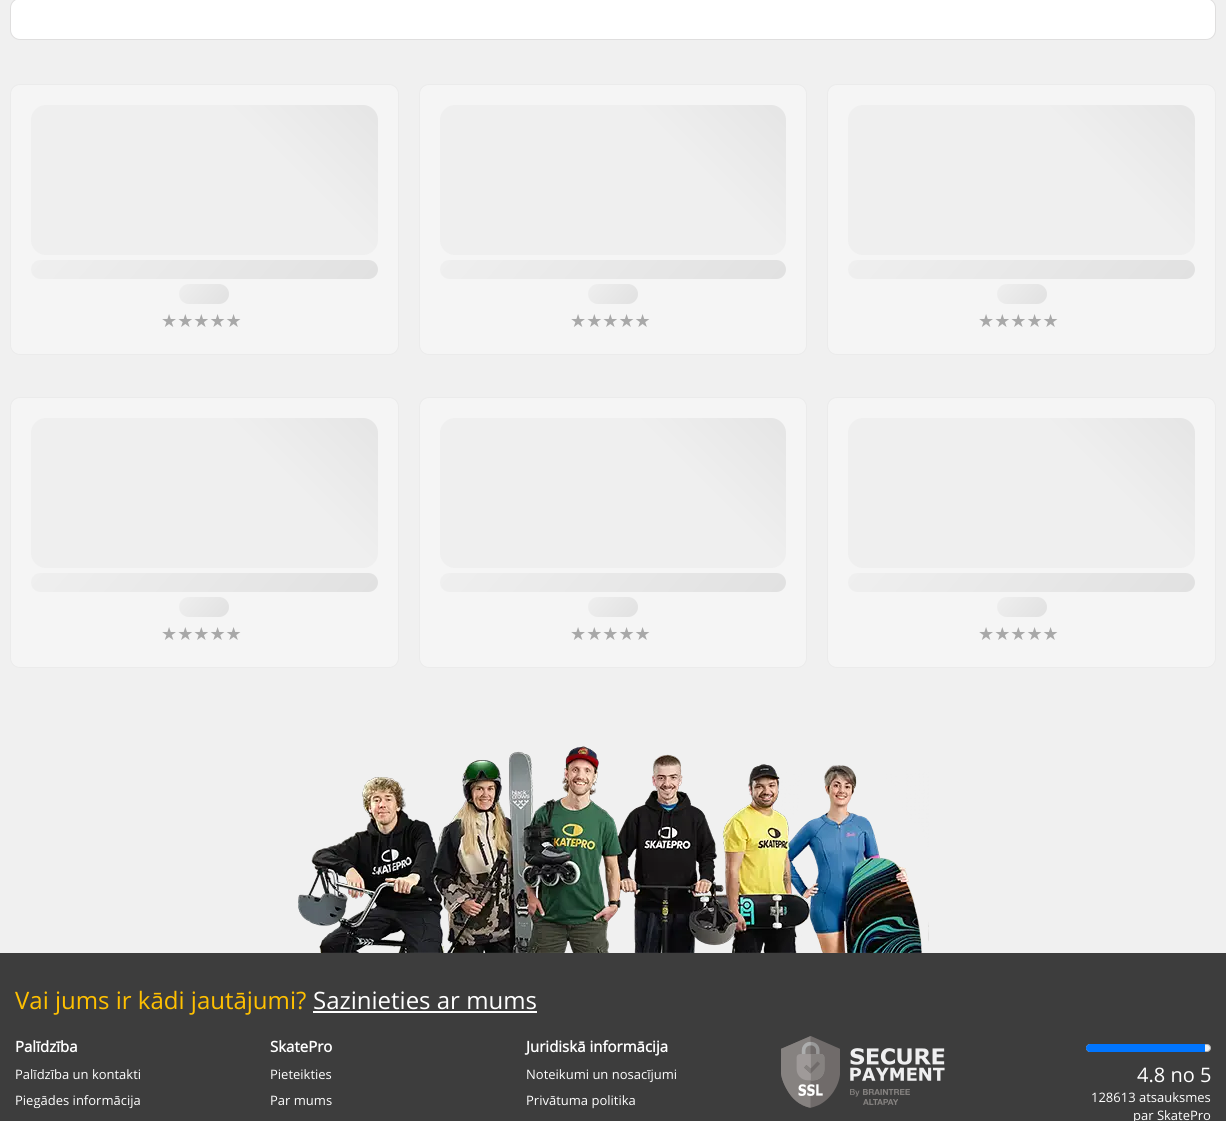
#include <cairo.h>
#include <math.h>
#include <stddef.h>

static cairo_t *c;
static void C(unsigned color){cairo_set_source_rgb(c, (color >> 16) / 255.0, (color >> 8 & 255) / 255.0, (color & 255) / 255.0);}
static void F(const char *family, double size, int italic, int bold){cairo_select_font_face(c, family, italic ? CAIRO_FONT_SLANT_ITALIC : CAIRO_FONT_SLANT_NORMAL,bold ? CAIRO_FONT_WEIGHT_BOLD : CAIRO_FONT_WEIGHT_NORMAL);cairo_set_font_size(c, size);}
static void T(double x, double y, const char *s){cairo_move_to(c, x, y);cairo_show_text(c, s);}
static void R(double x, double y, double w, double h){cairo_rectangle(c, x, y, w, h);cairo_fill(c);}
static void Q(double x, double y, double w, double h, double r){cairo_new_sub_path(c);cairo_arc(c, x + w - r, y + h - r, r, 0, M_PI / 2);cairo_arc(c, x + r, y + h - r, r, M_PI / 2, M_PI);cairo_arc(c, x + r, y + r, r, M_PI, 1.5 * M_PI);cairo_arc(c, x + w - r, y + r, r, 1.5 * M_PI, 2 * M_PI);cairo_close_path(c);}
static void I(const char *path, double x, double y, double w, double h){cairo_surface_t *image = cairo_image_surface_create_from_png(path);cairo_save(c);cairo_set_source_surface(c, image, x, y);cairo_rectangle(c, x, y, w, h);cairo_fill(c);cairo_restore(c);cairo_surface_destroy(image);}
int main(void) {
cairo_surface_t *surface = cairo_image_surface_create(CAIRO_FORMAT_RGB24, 1226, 1121);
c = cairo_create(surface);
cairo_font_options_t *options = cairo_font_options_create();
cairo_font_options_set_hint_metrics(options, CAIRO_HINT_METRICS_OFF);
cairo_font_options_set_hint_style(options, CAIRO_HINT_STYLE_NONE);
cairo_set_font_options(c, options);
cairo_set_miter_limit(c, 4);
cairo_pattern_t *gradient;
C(0x3d3d3d);
cairo_paint(c);
C(0xf0f0f0);
R(0,0,1226,953);
C(0xffffff);
Q(10.5,-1.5,1205,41,9.5);
cairo_fill_preserve(c);
C(0xdfdede);
cairo_set_line_width(c,1);
cairo_stroke(c);
C(0xf5f5f5);
Q(10.5,84.5,388,270,9.5);
cairo_fill_preserve(c);
C(0xebebeb);
cairo_stroke(c);
gradient = cairo_pattern_create_linear(228,902,1222,-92);
cairo_pattern_add_color_stop_rgba(gradient,.4,0.937,0.937,0.937,1);
cairo_pattern_add_color_stop_rgba(gradient,.6,0.835,0.835,0.835,1);
cairo_set_source(c,gradient);
cairo_pattern_destroy(gradient);
Q(31,105,347,150,15);
cairo_fill(c);
gradient = cairo_pattern_create_linear(101,180,308,359);
cairo_pattern_add_color_stop_rgba(gradient,0,0.937,0.937,0.937,1);
cairo_pattern_add_color_stop_rgba(gradient,1,0.882,0.882,0.882,1);
cairo_set_source(c,gradient);
cairo_pattern_destroy(gradient);
Q(31,260,347,19,9.5);
cairo_fill(c);
gradient = cairo_pattern_create_linear(185,277,223,311);
cairo_pattern_add_color_stop_rgba(gradient,0,0.937,0.937,0.937,1);
cairo_pattern_add_color_stop_rgba(gradient,1,0.882,0.882,0.882,1);
cairo_set_source(c,gradient);
cairo_pattern_destroy(gradient);
Q(179,284,50,20,10);
cairo_fill(c);
F("DejaVu Sans",18,0,0);
C(0xa8a8a8);
T(161,327,"★★★★★");
C(0xf5f5f5);
Q(419.5,84.5,387,270,9.5);
cairo_fill_preserve(c);
C(0xebebeb);
cairo_stroke(c);
gradient = cairo_pattern_create_linear(636,901,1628,-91);
cairo_pattern_add_color_stop_rgba(gradient,.4,0.937,0.937,0.937,1);
cairo_pattern_add_color_stop_rgba(gradient,.6,0.835,0.835,0.835,1);
cairo_set_source(c,gradient);
cairo_pattern_destroy(gradient);
Q(440,105,346,150,15);
cairo_fill(c);
gradient = cairo_pattern_create_linear(510,180,716,359);
cairo_pattern_add_color_stop_rgba(gradient,0,0.937,0.937,0.937,1);
cairo_pattern_add_color_stop_rgba(gradient,1,0.882,0.882,0.882,1);
cairo_set_source(c,gradient);
cairo_pattern_destroy(gradient);
Q(440,260,346,19,9.5);
cairo_fill(c);
gradient = cairo_pattern_create_linear(594,277,632,311);
cairo_pattern_add_color_stop_rgba(gradient,0,0.937,0.937,0.937,1);
cairo_pattern_add_color_stop_rgba(gradient,1,0.882,0.882,0.882,1);
cairo_set_source(c,gradient);
cairo_pattern_destroy(gradient);
Q(588,284,50,20,10);
cairo_fill(c);
C(0xa8a8a8);
T(570,327,"★★★★★");
C(0xf5f5f5);
Q(827.5,84.5,388,270,9.5);
cairo_fill_preserve(c);
C(0xebebeb);
cairo_stroke(c);
gradient = cairo_pattern_create_linear(1045,902,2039,-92);
cairo_pattern_add_color_stop_rgba(gradient,.4,0.937,0.937,0.937,1);
cairo_pattern_add_color_stop_rgba(gradient,.6,0.835,0.835,0.835,1);
cairo_set_source(c,gradient);
cairo_pattern_destroy(gradient);
Q(848,105,347,150,15);
cairo_fill(c);
gradient = cairo_pattern_create_linear(918,180,1125,359);
cairo_pattern_add_color_stop_rgba(gradient,0,0.937,0.937,0.937,1);
cairo_pattern_add_color_stop_rgba(gradient,1,0.882,0.882,0.882,1);
cairo_set_source(c,gradient);
cairo_pattern_destroy(gradient);
Q(848,260,347,19,9.5);
cairo_fill(c);
gradient = cairo_pattern_create_linear(1003,277,1041,311);
cairo_pattern_add_color_stop_rgba(gradient,0,0.937,0.937,0.937,1);
cairo_pattern_add_color_stop_rgba(gradient,1,0.882,0.882,0.882,1);
cairo_set_source(c,gradient);
cairo_pattern_destroy(gradient);
Q(997,284,50,20,10);
cairo_fill(c);
C(0xa8a8a8);
T(978,327,"★★★★★");
C(0xf5f5f5);
Q(10.5,397.5,388,270,9.5);
cairo_fill_preserve(c);
C(0xebebeb);
cairo_stroke(c);
gradient = cairo_pattern_create_linear(228,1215,1222,221);
cairo_pattern_add_color_stop_rgba(gradient,.4,0.937,0.937,0.937,1);
cairo_pattern_add_color_stop_rgba(gradient,.6,0.835,0.835,0.835,1);
cairo_set_source(c,gradient);
cairo_pattern_destroy(gradient);
Q(31,418,347,150,15);
cairo_fill(c);
gradient = cairo_pattern_create_linear(101,493,308,672);
cairo_pattern_add_color_stop_rgba(gradient,0,0.937,0.937,0.937,1);
cairo_pattern_add_color_stop_rgba(gradient,1,0.882,0.882,0.882,1);
cairo_set_source(c,gradient);
cairo_pattern_destroy(gradient);
Q(31,573,347,19,9.5);
cairo_fill(c);
gradient = cairo_pattern_create_linear(185,590,223,624);
cairo_pattern_add_color_stop_rgba(gradient,0,0.937,0.937,0.937,1);
cairo_pattern_add_color_stop_rgba(gradient,1,0.882,0.882,0.882,1);
cairo_set_source(c,gradient);
cairo_pattern_destroy(gradient);
Q(179,597,50,20,10);
cairo_fill(c);
C(0xa8a8a8);
T(161,640,"★★★★★");
C(0xf5f5f5);
Q(419.5,397.5,387,270,9.5);
cairo_fill_preserve(c);
C(0xebebeb);
cairo_stroke(c);
gradient = cairo_pattern_create_linear(636,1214,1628,222);
cairo_pattern_add_color_stop_rgba(gradient,.4,0.937,0.937,0.937,1);
cairo_pattern_add_color_stop_rgba(gradient,.6,0.835,0.835,0.835,1);
cairo_set_source(c,gradient);
cairo_pattern_destroy(gradient);
Q(440,418,346,150,15);
cairo_fill(c);
gradient = cairo_pattern_create_linear(510,493,716,672);
cairo_pattern_add_color_stop_rgba(gradient,0,0.937,0.937,0.937,1);
cairo_pattern_add_color_stop_rgba(gradient,1,0.882,0.882,0.882,1);
cairo_set_source(c,gradient);
cairo_pattern_destroy(gradient);
Q(440,573,346,19,9.5);
cairo_fill(c);
gradient = cairo_pattern_create_linear(594,590,632,624);
cairo_pattern_add_color_stop_rgba(gradient,0,0.937,0.937,0.937,1);
cairo_pattern_add_color_stop_rgba(gradient,1,0.882,0.882,0.882,1);
cairo_set_source(c,gradient);
cairo_pattern_destroy(gradient);
Q(588,597,50,20,10);
cairo_fill(c);
C(0xa8a8a8);
T(570,640,"★★★★★");
C(0xf5f5f5);
Q(827.5,397.5,388,270,9.5);
cairo_fill_preserve(c);
C(0xebebeb);
cairo_stroke(c);
gradient = cairo_pattern_create_linear(1045,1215,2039,221);
cairo_pattern_add_color_stop_rgba(gradient,.4,0.937,0.937,0.937,1);
cairo_pattern_add_color_stop_rgba(gradient,.6,0.835,0.835,0.835,1);
cairo_set_source(c,gradient);
cairo_pattern_destroy(gradient);
Q(848,418,347,150,15);
cairo_fill(c);
gradient = cairo_pattern_create_linear(918,493,1125,672);
cairo_pattern_add_color_stop_rgba(gradient,0,0.937,0.937,0.937,1);
cairo_pattern_add_color_stop_rgba(gradient,1,0.882,0.882,0.882,1);
cairo_set_source(c,gradient);
cairo_pattern_destroy(gradient);
Q(848,573,347,19,9.5);
cairo_fill(c);
gradient = cairo_pattern_create_linear(1003,590,1041,624);
cairo_pattern_add_color_stop_rgba(gradient,0,0.937,0.937,0.937,1);
cairo_pattern_add_color_stop_rgba(gradient,1,0.882,0.882,0.882,1);
cairo_set_source(c,gradient);
cairo_pattern_destroy(gradient);
Q(997,597,50,20,10);
cairo_fill(c);
C(0xa8a8a8);
T(978,640,"★★★★★");
I("1.png",298,746,631,207);
F("Open Sans",24,0,0);
C(0xffc000);
T(15,1009,"Vai jums ir kādi jautājumi?");
C(0xffffff);
T(313,1009,"Sazinieties ar mums");
R(313,1011,224,2);
F("Open Sans",15,0,1);
T(15,1052,"Palīdzība");
F("Open Sans",13,0,0);
T(15,1079,"Palīdzība un kontakti");
T(15,1105,"Piegādes informācija");
F("Open Sans",15,0,1);
T(270,1052,"SkatePro");
F("Open Sans",13,0,0);
T(270,1079,"Pieteikties");
T(270,1105,"Par mums");
F("Open Sans",15,0,1);
T(526,1052,"Juridiskā informācija");
F("Open Sans",13,0,0);
T(526,1079,"Noteikumi un nosacījumi");
T(526,1105,"Privātuma politika");
I("2.png",781,1036,59,72);
I("3.png",850,1048,95,33);
I("4.png",850,1089,10,8);
I("5.png",863,1089,47,6);
I("6.png",863,1099,35,6);
C(0xefefef);
Q(1086.5,1044.5,124,7,3.5);
cairo_fill_preserve(c);
C(0xb2b2b2);
cairo_stroke(c);
C(0x0075ff);
cairo_new_path(c);
cairo_move_to(c,1090,1044);
cairo_line_to(c,1205,1044);
cairo_line_to(c,1205,1052);
cairo_line_to(c,1090,1052);
cairo_curve_to(c,1088,1052,1086,1050,1086,1048);
cairo_curve_to(c,1086,1046,1088,1044,1090,1044);
cairo_close_path(c);
cairo_fill(c);
F("Open Sans",20,0,0);
C(0xffffff);
T(1137,1082,"4.8 no 5");
F("Open Sans",13,0,0);
T(1091,1102,"128613 atsauksmes");
T(1133,1120,"par SkatePro");
cairo_surface_write_to_png(surface, "o.png");
cairo_font_options_destroy(options);
cairo_destroy(c);
cairo_surface_destroy(surface);
return 0;
}
